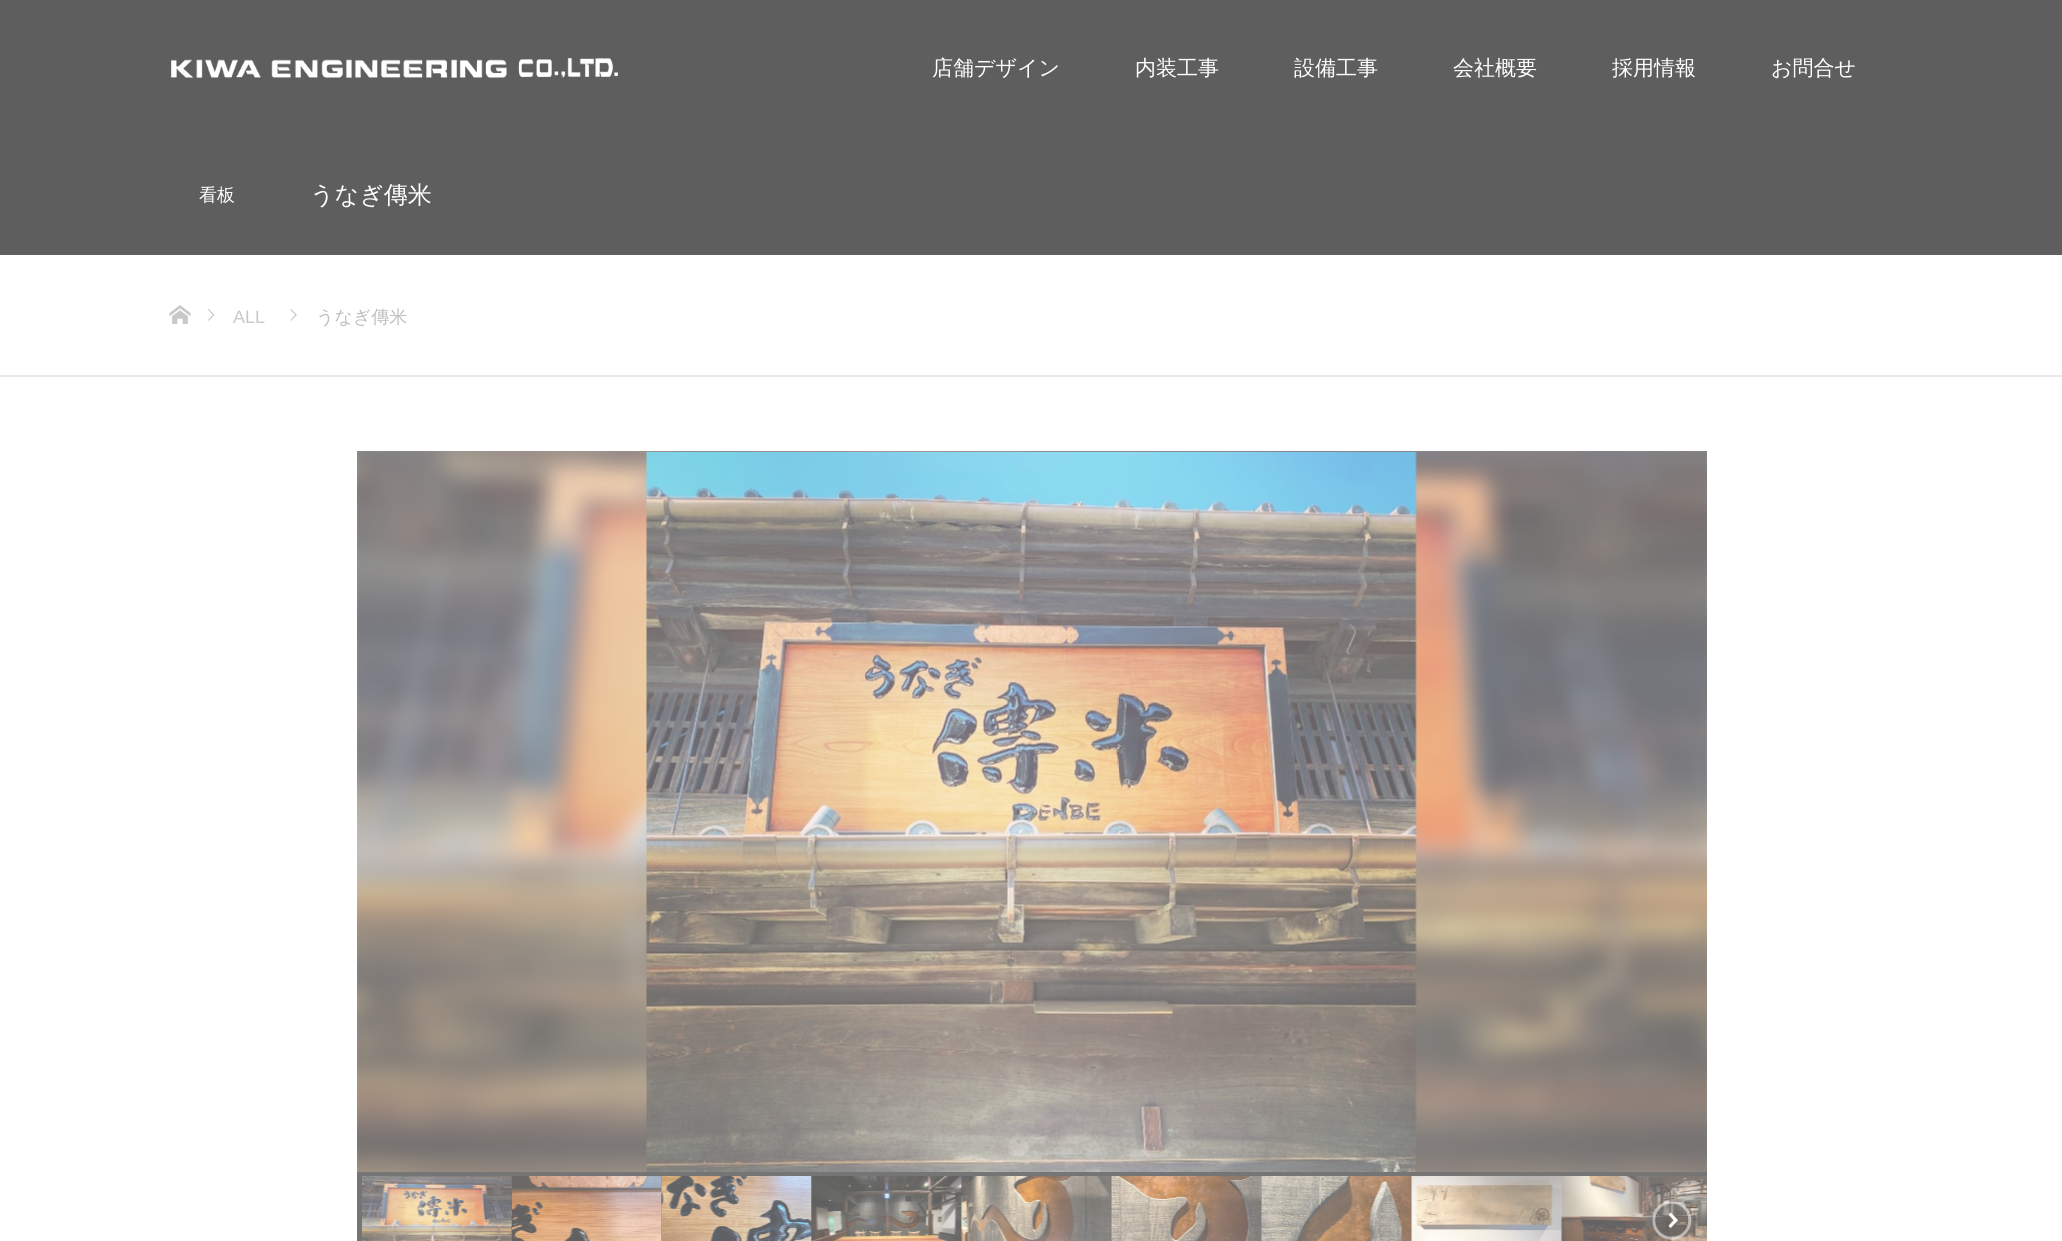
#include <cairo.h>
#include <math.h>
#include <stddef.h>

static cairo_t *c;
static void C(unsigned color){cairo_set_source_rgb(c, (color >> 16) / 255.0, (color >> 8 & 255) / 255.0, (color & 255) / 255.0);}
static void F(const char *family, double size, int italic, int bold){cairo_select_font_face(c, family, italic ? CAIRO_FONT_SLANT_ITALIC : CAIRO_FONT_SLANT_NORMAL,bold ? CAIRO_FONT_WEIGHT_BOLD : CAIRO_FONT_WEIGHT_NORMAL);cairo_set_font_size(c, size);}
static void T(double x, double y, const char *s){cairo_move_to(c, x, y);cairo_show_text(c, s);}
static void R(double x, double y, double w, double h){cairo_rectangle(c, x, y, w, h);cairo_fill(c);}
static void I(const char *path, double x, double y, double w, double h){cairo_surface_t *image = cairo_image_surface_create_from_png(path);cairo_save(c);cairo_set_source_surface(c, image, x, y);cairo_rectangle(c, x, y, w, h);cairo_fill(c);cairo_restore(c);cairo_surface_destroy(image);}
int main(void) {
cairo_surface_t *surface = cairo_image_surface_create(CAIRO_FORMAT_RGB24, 2062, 1241);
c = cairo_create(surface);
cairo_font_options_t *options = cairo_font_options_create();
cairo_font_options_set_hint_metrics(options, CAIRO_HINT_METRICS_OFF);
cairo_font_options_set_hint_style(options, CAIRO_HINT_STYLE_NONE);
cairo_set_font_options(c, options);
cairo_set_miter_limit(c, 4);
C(0xffffff);
cairo_paint(c);
C(0x5e5e5e);
R(0,0,2062,255);
I("1.png",171,58,447,20);
F("WenQuanYi Zen Hei Medium",21,0,0);
C(0xffffff);
T(932,75,"店舗デザイン");
T(1135,75,"内装工事");
T(1294,75,"設備工事");
T(1453,75,"会社概要");
T(1612,75,"採用情報");
T(1771,75,"お問合せ");
F("WenQuanYi Zen Hei Medium",18,0,0);
T(199,201,"看板");
F("WenQuanYi Zen Hei Medium",24,0,0);
T(310,203,"うなぎ傳米");
C(0xeaeaea);
R(0,375,2062,2);
I("2.png",169,305,22,19);
I("3.png",208,309,7,12);
F("Liberation Sans",18,0,0);
C(0xc9c9c9);
T(233,323,"ALL");
I("4.png",290,309,7,12);
F("WenQuanYi Zen Hei Medium",18,0,0);
C(0xbfbfbf);
T(316,323,"うなぎ傳米");
I("5.png",357,451,1350,721);
I("6.png",646,452,771,720);
C(0x757575);
R(357,1172,1350,69);
I("7.png",362,1176,150,65);
I("8.png",512,1176,150,65);
I("9.png",661,1176,151,65);
I("10.png",811,1176,151,65);
I("11.png",961,1176,151,65);
I("12.png",1111,1176,151,65);
I("13.png",1261,1176,151,65);
I("14.png",1411,1176,151,65);
I("15.png",1561,1176,146,65);
I("16.png",1652,1201,39,39);
cairo_surface_write_to_png(surface, "o.png");
cairo_font_options_destroy(options);
cairo_destroy(c);
cairo_surface_destroy(surface);
return 0;
}
